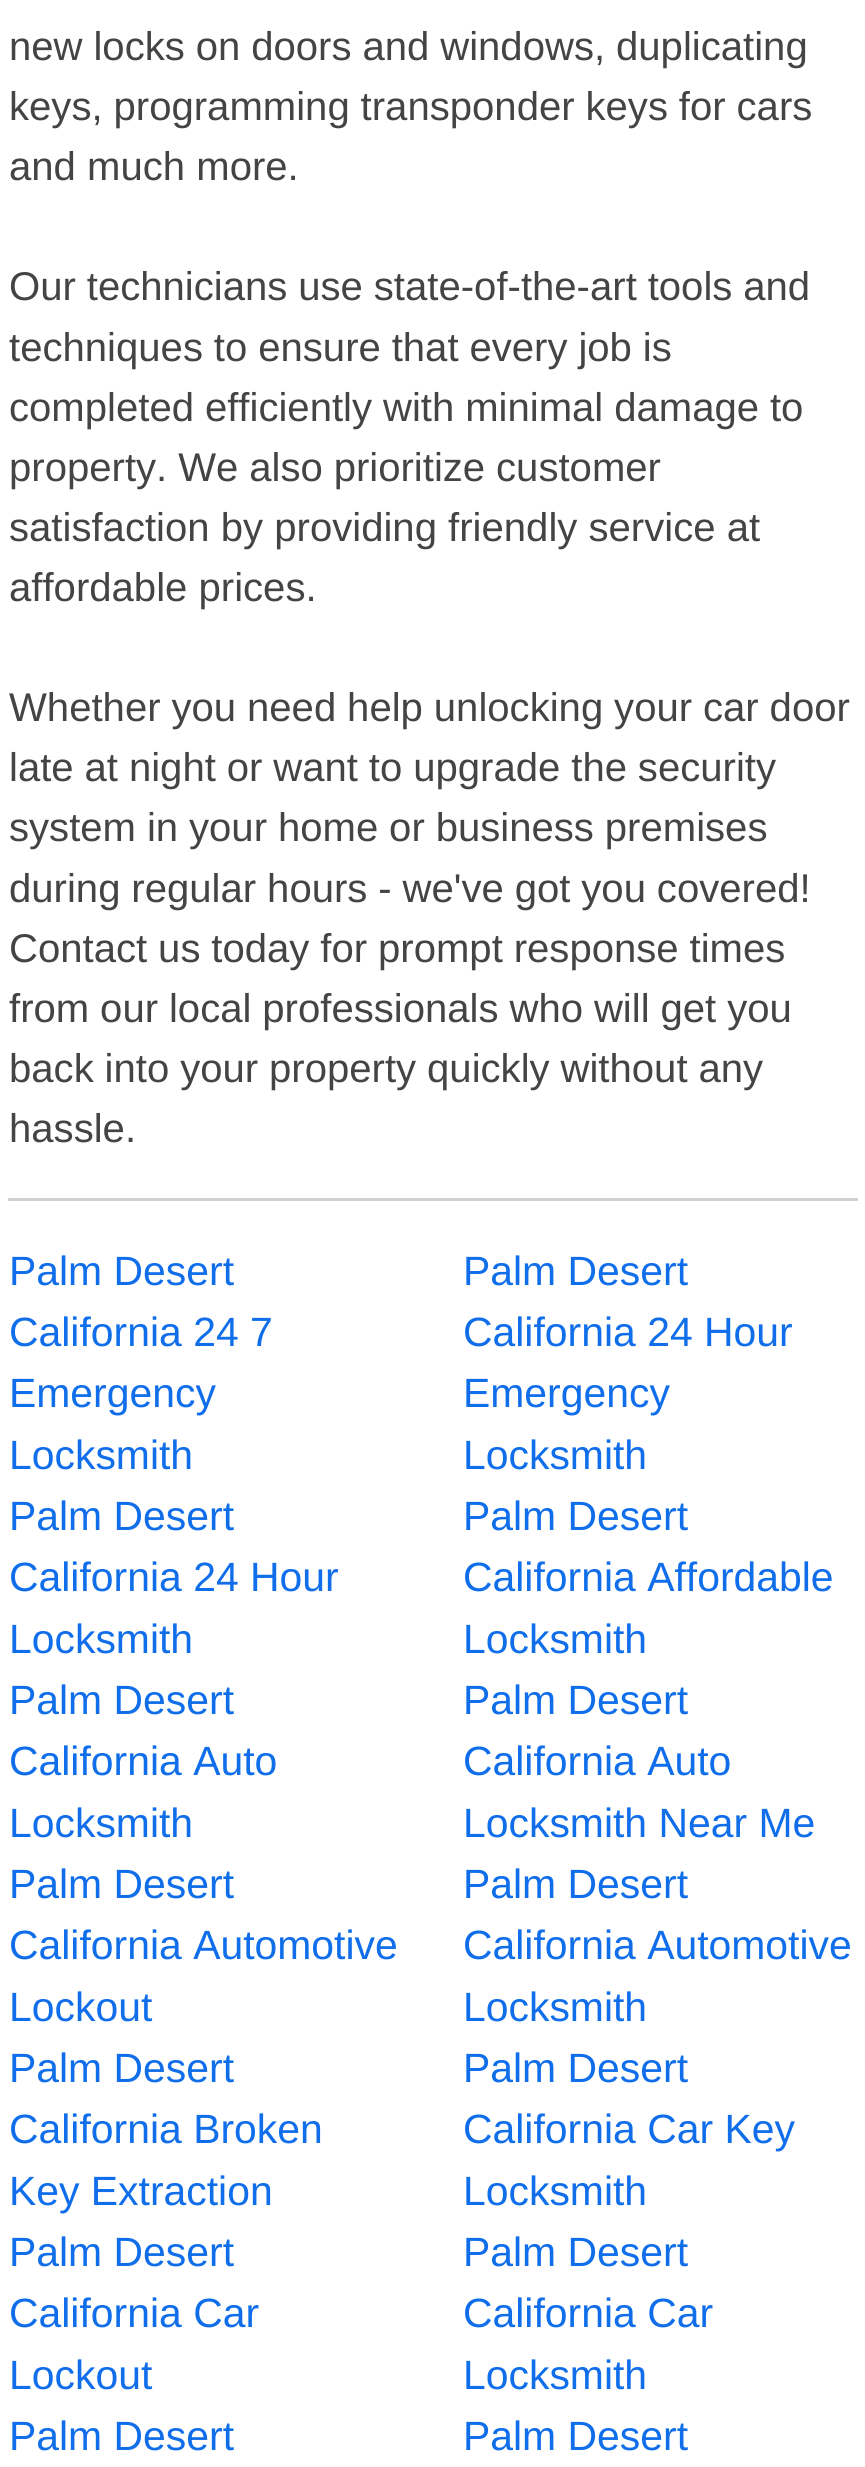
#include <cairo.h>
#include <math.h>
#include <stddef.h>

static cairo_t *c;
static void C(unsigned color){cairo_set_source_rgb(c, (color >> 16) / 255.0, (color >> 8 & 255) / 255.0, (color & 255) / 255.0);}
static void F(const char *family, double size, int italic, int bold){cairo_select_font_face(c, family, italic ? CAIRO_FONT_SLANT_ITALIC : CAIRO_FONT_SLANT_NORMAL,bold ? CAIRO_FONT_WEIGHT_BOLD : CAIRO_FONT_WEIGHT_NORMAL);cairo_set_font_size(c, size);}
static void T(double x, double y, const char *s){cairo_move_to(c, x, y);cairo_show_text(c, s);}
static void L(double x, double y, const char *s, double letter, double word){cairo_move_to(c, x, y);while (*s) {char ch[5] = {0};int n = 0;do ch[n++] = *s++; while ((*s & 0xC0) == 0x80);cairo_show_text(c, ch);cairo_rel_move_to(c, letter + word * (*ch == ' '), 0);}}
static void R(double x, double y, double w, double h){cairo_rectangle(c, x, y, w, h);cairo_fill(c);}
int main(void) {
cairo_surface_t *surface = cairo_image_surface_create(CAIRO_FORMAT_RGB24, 865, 2467);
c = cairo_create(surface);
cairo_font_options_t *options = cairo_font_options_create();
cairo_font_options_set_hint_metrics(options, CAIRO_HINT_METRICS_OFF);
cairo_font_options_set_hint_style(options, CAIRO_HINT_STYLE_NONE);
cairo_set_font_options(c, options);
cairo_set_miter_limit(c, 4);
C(0xffffff);
cairo_paint(c);
F("Liberation Sans",40.1,0,0);
C(0x444444);
L(9,60,"new locks on doors and windows, duplicating",0,-.25);
L(9,120,"keys, programming transponder keys for cars",0,-.25);
T(9,180,"and much more.");
L(9,300,"Our technicians use state-of-the-art tools and",0,-.25);
L(9,361,"techniques to ensure that every job is",0,-.25);
L(9,421,"completed efficiently with minimal damage to",0,-.25);
L(9,481,"property. We also prioritize customer",0,-.25);
T(9,541,"satisfaction by providing friendly service at");
T(9,601,"affordable prices.");
L(9,721,"Whether you need help unlocking your car door",0,-.25);
L(9,781,"late at night or want to upgrade the security",0,-.25);
L(9,841,"system in your home or business premises",0,-.25);
L(9,902,"during regular hours - we've got you covered!",0,-.25);
L(9,962,"Contact us today for prompt response times",0,-.25);
L(9,1022,"from our local professionals who will get you",0,-.25);
L(9,1082,"back into your property quickly without any",0,-.25);
T(9,1142,"hassle.");
C(0xd0d0d0);
R(8,1198,850,3);
F("Liberation Sans",40.9,0,0);
C(0x106eea);
T(9,1285,"Palm Desert");
T(9,1346,"California 24 7");
T(9,1407,"Emergency");
T(9,1469,"Locksmith");
T(463,1285,"Palm Desert");
T(463,1346,"California 24 Hour");
T(463,1407,"Emergency");
T(463,1469,"Locksmith");
T(9,1530,"Palm Desert");
T(9,1591,"California 24 Hour");
T(9,1653,"Locksmith");
T(463,1530,"Palm Desert");
T(463,1591,"California Affordable");
T(463,1653,"Locksmith");
T(9,1714,"Palm Desert");
T(9,1775,"California Auto");
T(9,1837,"Locksmith");
T(463,1714,"Palm Desert");
T(463,1775,"California Auto");
T(463,1837,"Locksmith Near Me");
T(9,1898,"Palm Desert");
T(9,1959,"California Automotive");
T(9,2021,"Lockout");
T(463,1898,"Palm Desert");
T(463,1959,"California Automotive");
T(463,2021,"Locksmith");
T(9,2082,"Palm Desert");
T(9,2143,"California Broken");
T(9,2205,"Key Extraction");
T(463,2082,"Palm Desert");
T(463,2143,"California Car Key");
T(463,2205,"Locksmith");
T(9,2266,"Palm Desert");
T(9,2327,"California Car");
T(9,2389,"Lockout");
T(463,2266,"Palm Desert");
T(463,2327,"California Car");
T(463,2389,"Locksmith");
T(9,2450,"Palm Desert");
T(463,2450,"Palm Desert");
cairo_surface_write_to_png(surface, "o.png");
cairo_font_options_destroy(options);
cairo_destroy(c);
cairo_surface_destroy(surface);
return 0;
}
